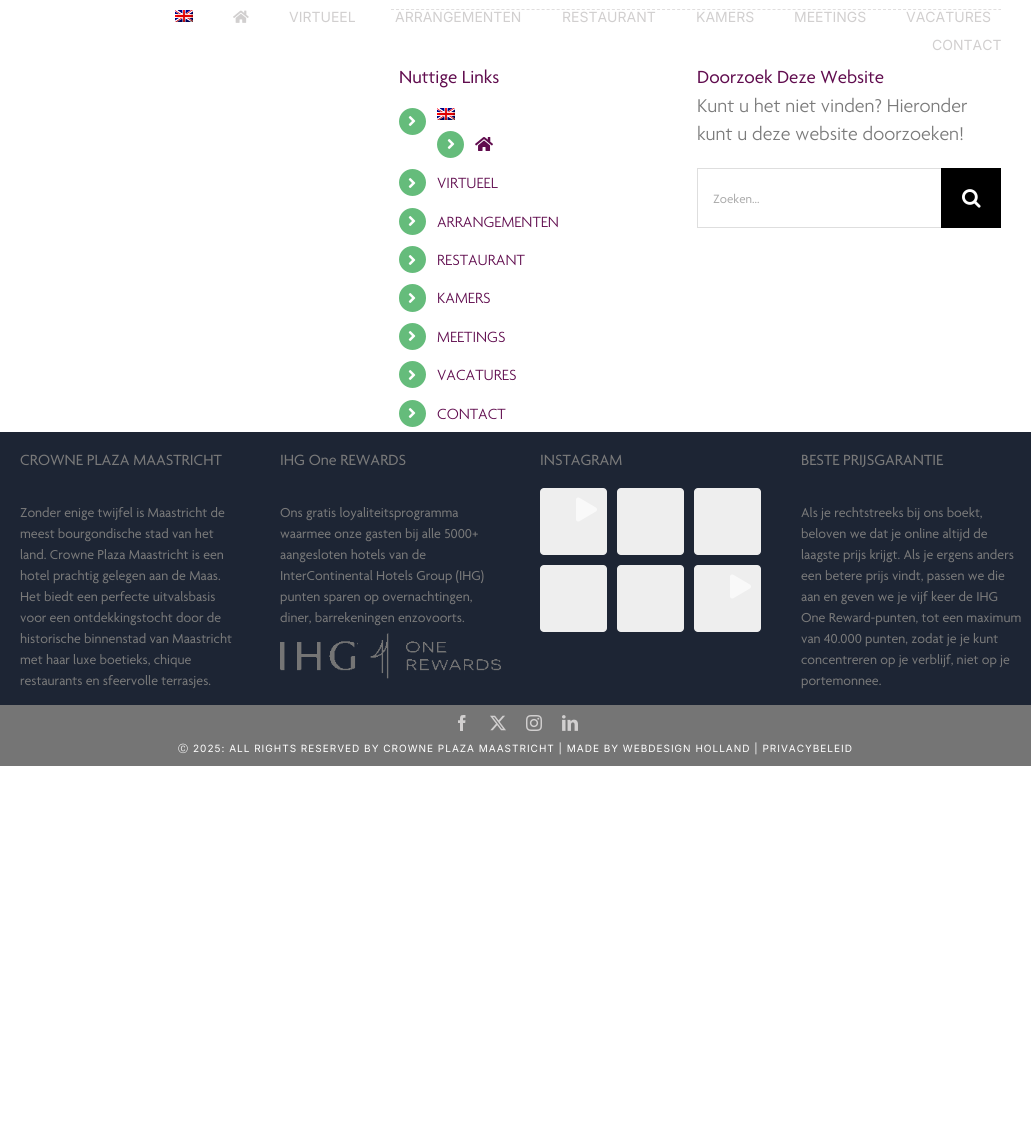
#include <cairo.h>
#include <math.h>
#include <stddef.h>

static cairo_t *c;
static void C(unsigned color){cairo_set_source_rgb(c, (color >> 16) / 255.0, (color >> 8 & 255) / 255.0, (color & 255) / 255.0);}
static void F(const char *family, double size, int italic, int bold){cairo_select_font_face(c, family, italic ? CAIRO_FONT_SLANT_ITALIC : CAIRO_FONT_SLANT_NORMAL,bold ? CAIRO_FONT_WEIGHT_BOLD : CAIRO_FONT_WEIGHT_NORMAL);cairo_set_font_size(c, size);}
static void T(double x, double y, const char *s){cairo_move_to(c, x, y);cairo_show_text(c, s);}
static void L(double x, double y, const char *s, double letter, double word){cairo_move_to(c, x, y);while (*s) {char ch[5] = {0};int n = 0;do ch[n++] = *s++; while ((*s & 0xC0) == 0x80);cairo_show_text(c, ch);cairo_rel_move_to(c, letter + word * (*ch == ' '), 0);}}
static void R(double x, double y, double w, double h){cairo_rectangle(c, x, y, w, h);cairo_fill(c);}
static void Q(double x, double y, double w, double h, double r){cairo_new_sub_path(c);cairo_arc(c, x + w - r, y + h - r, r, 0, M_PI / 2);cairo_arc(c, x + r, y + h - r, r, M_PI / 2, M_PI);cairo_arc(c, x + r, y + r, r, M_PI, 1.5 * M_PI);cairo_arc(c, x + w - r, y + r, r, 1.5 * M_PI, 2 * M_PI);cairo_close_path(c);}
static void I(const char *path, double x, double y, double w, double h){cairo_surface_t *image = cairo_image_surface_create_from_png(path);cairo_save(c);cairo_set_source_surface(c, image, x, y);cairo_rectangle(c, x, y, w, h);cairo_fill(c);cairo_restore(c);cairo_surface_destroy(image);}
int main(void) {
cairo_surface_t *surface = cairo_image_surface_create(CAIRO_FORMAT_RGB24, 1031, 1126);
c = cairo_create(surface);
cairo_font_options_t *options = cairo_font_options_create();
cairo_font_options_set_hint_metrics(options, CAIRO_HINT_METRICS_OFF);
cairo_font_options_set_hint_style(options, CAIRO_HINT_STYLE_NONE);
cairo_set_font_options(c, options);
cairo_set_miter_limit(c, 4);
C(0xffffff);
cairo_paint(c);
I("1.png",175,10,18,12);
I("2.png",233,10,16,13);
F("Inter",14,0,0);
C(0xd1cfcf);
T(289,22,"VIRTUEEL");
T(395,22,"ARRANGEMENTEN");
T(562,22,"RESTAURANT");
T(696,22,"KAMERS");
T(794,22,"MEETINGS");
T(906,22,"VACATURES");
T(932,50,"CONTACT");
cairo_new_path(c);
cairo_move_to(c,391,9.5);
cairo_line_to(c,1001,9.5);
C(0xe0dede);
cairo_set_line_width(c,1);
cairo_set_dash(c,(double[]){3,2.02},2,0);
cairo_stroke(c);
F("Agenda",19,0,0);
C(0x600c4e);
T(399,83,"Nuttige Links");
C(0x65bc7b);
cairo_new_path(c);
cairo_arc(c,412.5,121.5,13.5,0,2 * M_PI);
cairo_fill(c);
I("3.png",408,116,8,10);
I("1.png",437,108,18,12);
cairo_arc(c,450.5,144.5,13.5,0,2 * M_PI);
cairo_fill(c);
I("3.png",447,139,8,10);
I("4.png",475,137,18,14);
cairo_arc(c,412.5,182.5,13.5,0,2 * M_PI);
cairo_fill(c);
I("3.png",408,178,8,10);
F("Agenda Light",16,0,0);
C(0x600c4e);
T(437,188,"VIRTUEEL");
C(0x65bc7b);
cairo_new_path(c);
cairo_arc(c,412.5,221.5,13.5,0,2 * M_PI);
cairo_fill(c);
I("3.png",408,216,8,10);
C(0x600c4e);
T(437,227,"ARRANGEMENTEN");
C(0x65bc7b);
cairo_new_path(c);
cairo_arc(c,412.5,259.5,13.5,0,2 * M_PI);
cairo_fill(c);
I("3.png",408,255,8,10);
C(0x600c4e);
T(437,265,"RESTAURANT");
C(0x65bc7b);
Q(399,284,27,28,13.5);
cairo_fill(c);
I("3.png",408,293,8,10);
C(0x600c4e);
T(437,303,"KAMERS");
C(0x65bc7b);
cairo_new_path(c);
cairo_arc(c,412.5,336.5,13.5,0,2 * M_PI);
cairo_fill(c);
I("3.png",408,331,8,10);
C(0x600c4e);
T(437,342,"MEETINGS");
C(0x65bc7b);
cairo_new_path(c);
cairo_arc(c,412.5,374.5,13.5,0,2 * M_PI);
cairo_fill(c);
I("3.png",408,370,8,10);
C(0x600c4e);
T(437,380,"VACATURES");
C(0x65bc7b);
cairo_new_path(c);
cairo_arc(c,412.5,413.5,13.5,0,2 * M_PI);
cairo_fill(c);
I("3.png",408,408,8,10);
C(0x600c4e);
T(437,419,"CONTACT");
F("Agenda",19,0,0);
T(697,83,"Doorzoek Deze Website");
F("Agenda Light",20,0,0);
C(0x7a7a7a);
T(697,112,"Kunt u het niet vinden? Hieronder");
T(697,140,"kunt u deze website doorzoeken!");
C(0xdedede);
R(697,168,244,1);
R(697,227,244,1);
R(697,168,1,60);
F("Agenda",13,0,0);
C(0xa9a9a9);
T(713,203,"Zoeken...");
C(0x000000);
R(941,168,60,60);
I("5.png",962,189,19,19);
C(0x1d2534);
R(0,432,1031,273);
F("Agenda",16,0,0);
C(0x7a7a7a);
T(20,465,"CROWNE PLAZA MAASTRICHT");
F("Agenda",14,0,0);
T(20,517,"Zonder enige twijfel is Maastricht de");
T(20,538,"meest bourgondische stad van het");
T(20,559,"land. Crowne Plaza Maastricht is een");
T(20,580,"hotel prachtig gelegen aan de Maas.");
T(20,601,"Het biedt een perfecte uitvalsbasis");
T(20,622,"voor een ontdekkingstocht door de");
T(20,643,"historische binnenstad van Maastricht");
T(20,664,"met haar luxe boetieks, chique");
T(20,685,"restaurants en sfeervolle terrasjes.");
F("Agenda",16,0,0);
T(280,465,"IHG One REWARDS");
F("Agenda",14,0,0);
T(280,517,"Ons gratis loyaliteitsprogramma");
T(280,538,"waarmee onze gasten bij alle 5000+");
T(280,559,"aangesloten hotels van de");
T(280,580,"InterContinental Hotels Group (IHG)");
T(280,601,"punten sparen op overnachtingen,");
T(280,622,"diner, barrekeningen enzovoorts.");
I("6.png",280,633,221,46);
F("Agenda",16,0,0);
T(540,465,"INSTAGRAM");
C(0xeeeeee);
Q(540,488,67,67,4);
cairo_fill(c);
I("7.png",576,497,21,25);
Q(617,488,67,67,4);
cairo_fill(c);
Q(694,488,67,67,4);
cairo_fill(c);
Q(540,565,67,67,4);
cairo_fill(c);
Q(617,565,67,67,4);
cairo_fill(c);
Q(694,565,67,67,4);
cairo_fill(c);
I("7.png",730,574,21,25);
C(0x7a7a7a);
T(801,465,"BESTE PRIJSGARANTIE");
F("Agenda",14,0,0);
T(801,517,"Als je rechtstreeks bij ons boekt,");
T(801,538,"beloven we dat je online altijd de");
T(801,559,"laagste prijs krijgt. Als je ergens anders");
T(801,580,"een betere prijs vindt, passen we die");
T(801,601,"aan en geven we je vijf keer de IHG");
T(801,622,"One Reward-punten, tot een maximum");
T(801,643,"van 40.000 punten, zodat je je kunt");
T(801,664,"concentreren op je verblijf, niet op je");
T(801,685,"portemonnee.");
C(0x757575);
R(0,705,1031,61);
I("8.png",458,715,8,16);
I("9.png",490,715,16,16);
I("10.png",526,715,16,16);
I("11.png",562,715,16,16);
F("WenQuanYi Zen Hei Medium",10,0,0);
C(0xffffff);
L(178,752,"Ⓒ",1,0);
F("Inter",10,0,0);
L(193,752,"2025: ALL RIGHTS RESERVED BY CROWNE PLAZA MAASTRICHT | MADE BY WEBDESIGN HOLLAND | PRIVACYBELEID",1,0);
cairo_surface_write_to_png(surface, "o.png");
cairo_font_options_destroy(options);
cairo_destroy(c);
cairo_surface_destroy(surface);
return 0;
}
